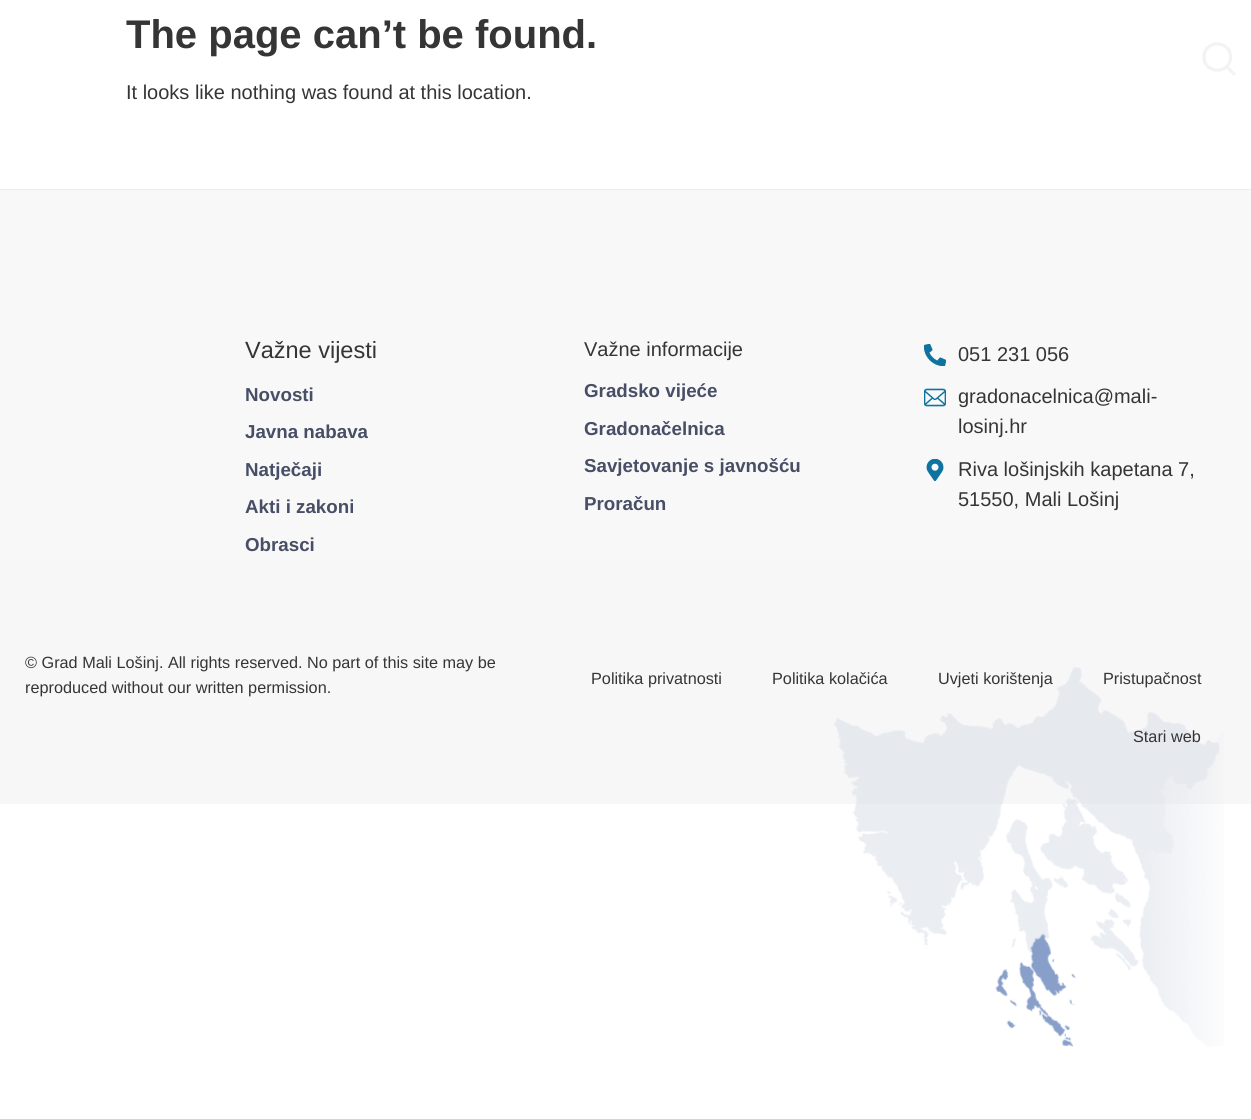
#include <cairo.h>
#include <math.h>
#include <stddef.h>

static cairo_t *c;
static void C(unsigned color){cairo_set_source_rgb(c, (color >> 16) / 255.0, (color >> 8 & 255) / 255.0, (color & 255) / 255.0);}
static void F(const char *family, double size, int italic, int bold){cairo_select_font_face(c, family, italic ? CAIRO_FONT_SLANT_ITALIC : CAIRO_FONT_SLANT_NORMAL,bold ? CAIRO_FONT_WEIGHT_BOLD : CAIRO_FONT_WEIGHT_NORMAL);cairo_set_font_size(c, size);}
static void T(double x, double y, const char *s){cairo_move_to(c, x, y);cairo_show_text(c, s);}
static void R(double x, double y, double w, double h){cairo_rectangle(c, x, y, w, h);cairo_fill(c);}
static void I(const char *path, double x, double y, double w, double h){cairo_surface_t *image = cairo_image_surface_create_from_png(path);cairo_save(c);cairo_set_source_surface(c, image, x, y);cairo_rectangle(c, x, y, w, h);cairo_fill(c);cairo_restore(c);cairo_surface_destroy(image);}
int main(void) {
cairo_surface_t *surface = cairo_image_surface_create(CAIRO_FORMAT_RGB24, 1251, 1119);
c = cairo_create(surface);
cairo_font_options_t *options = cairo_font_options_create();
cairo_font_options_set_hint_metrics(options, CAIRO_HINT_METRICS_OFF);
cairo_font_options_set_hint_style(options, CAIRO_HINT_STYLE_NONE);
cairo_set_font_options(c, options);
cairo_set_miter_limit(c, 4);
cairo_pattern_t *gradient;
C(0xffffff);
cairo_paint(c);
F("Liberation Sans",40,0,1);
C(0x353535);
T(126,48,"The page can’t be found.");
F("Liberation Sans",20,0,0);
T(126,99,"It looks like nothing was found at this location.");
cairo_new_path(c);
cairo_move_to(c,1227,67);
cairo_line_to(c,1234,74);
C(0xf3f3f3);
cairo_set_line_width(c,3.3);
cairo_set_line_cap(c,CAIRO_LINE_CAP_ROUND);
cairo_set_line_join(c,CAIRO_LINE_JOIN_ROUND);
cairo_stroke(c);
cairo_new_path(c);
cairo_move_to(c,1230.5,57);
cairo_curve_to(c,1230.5,74.5,1204,74.5,1204,57);
cairo_curve_to(c,1204,39.5,1230.5,39.5,1230.5,57);
cairo_close_path(c);
cairo_set_line_cap(c,CAIRO_LINE_CAP_BUTT);
cairo_set_line_join(c,CAIRO_LINE_JOIN_MITER);
cairo_stroke(c);
gradient = cairo_pattern_create_linear(626,190,626,804);
cairo_pattern_add_color_stop_rgba(gradient,0,0.973,0.973,0.973,1);
cairo_pattern_add_color_stop_rgba(gradient,1,0.969,0.969,0.969,1);
cairo_set_source(c,gradient);
cairo_pattern_destroy(gradient);
R(0,190,1251,614);
C(0xececec);
R(0,189,1251,1);
F("Liberation Sans",23.5,0,0);
C(0x353535);
T(245,358,"Važne vijesti");
F("Liberation Sans",18.75,0,1);
C(0x474e66);
T(245,401,"Novosti");
T(245,438,"Javna nabava");
T(245,476,"Natječaji");
T(245,513,"Akti i zakoni");
T(245,551,"Obrasci");
F("Liberation Sans",20,0,0);
C(0x353535);
T(584,356,"Važne informacije");
F("Liberation Sans",18.75,0,1);
C(0x474e66);
T(584,397,"Gradsko vijeće");
T(584,435,"Gradonačelnica");
T(584,472,"Savjetovanje s javnošću");
T(584,510,"Proračun");
I("1.png",924,344,22,22);
F("Liberation Sans",20,0,0);
C(0x353535);
T(958,361,"051 231 056");
I("2.png",924,388,22,19);
T(958,403,"gradonacelnica@mali-");
T(958,433,"losinj.hr");
I("3.png",926,459,18,22);
T(958,476,"Riva lošinjskih kapetana 7,");
T(958,506,"51550, Mali Lošinj");
F("Liberation Sans",16.25,0,0);
T(25,668,"© Grad Mali Lošinj. All rights reserved. No part of this site may be");
T(25,693,"reproduced without our written permission.");
T(591,684,"Politika privatnosti");
I("4.png",834,667,390,380);
T(772,684,"Politika kolačića");
T(938,684,"Uvjeti korištenja");
T(1103,684,"Pristupačnost");
T(1133,742,"Stari web");
cairo_surface_write_to_png(surface, "o.png");
cairo_font_options_destroy(options);
cairo_destroy(c);
cairo_surface_destroy(surface);
return 0;
}
